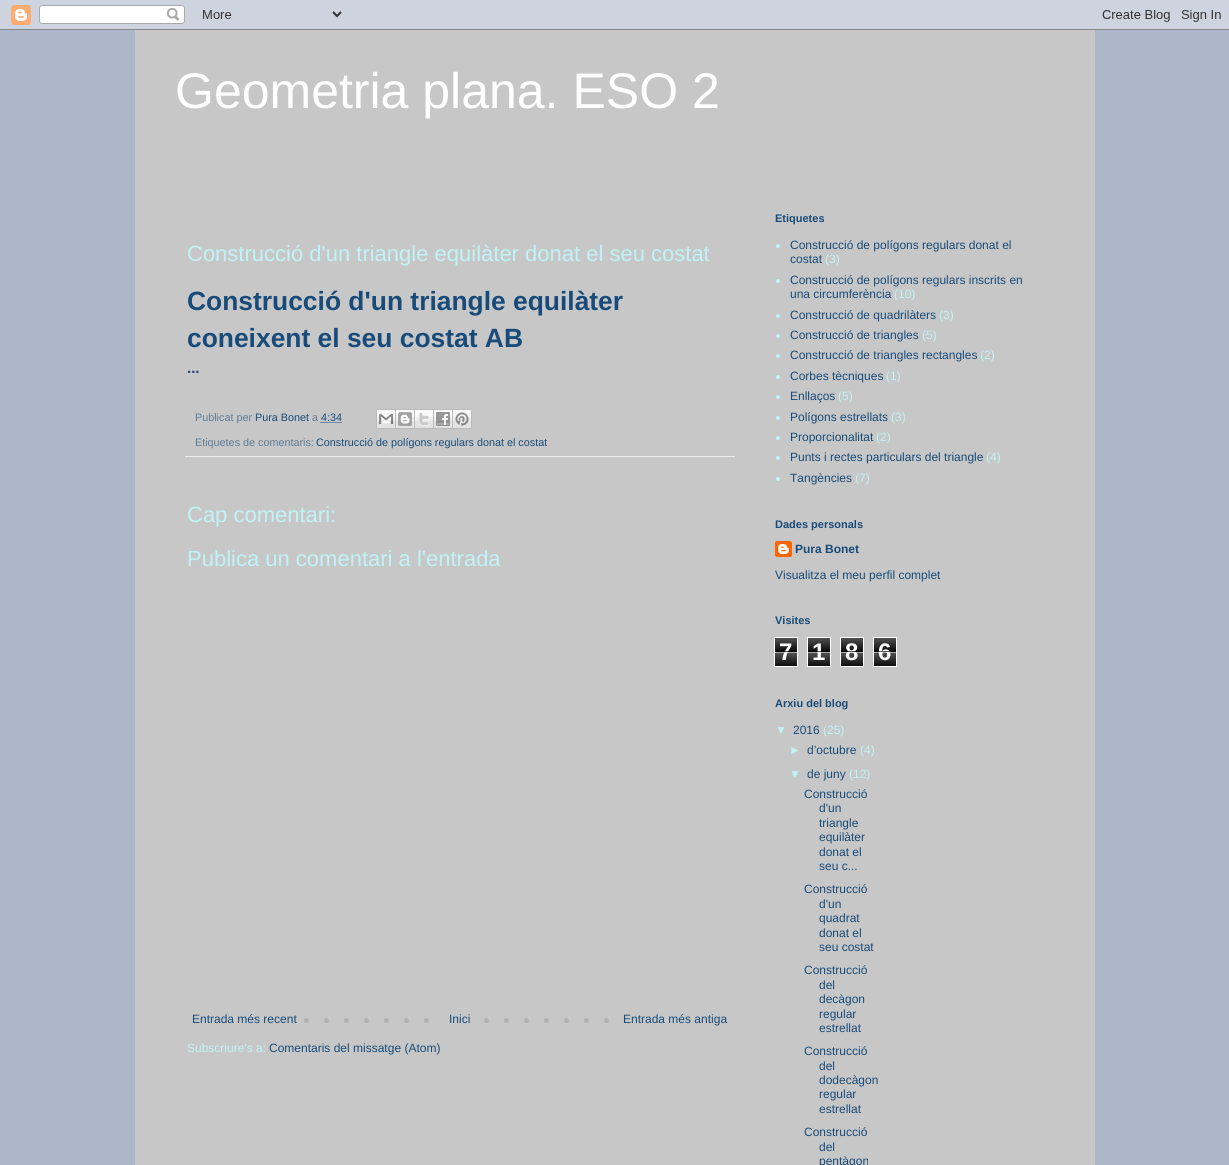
#include <cairo.h>
#include <math.h>
#include <stddef.h>

static cairo_t *c;
static void C(unsigned color){cairo_set_source_rgb(c, (color >> 16) / 255.0, (color >> 8 & 255) / 255.0, (color & 255) / 255.0);}
static void F(const char *family, double size, int italic, int bold){cairo_select_font_face(c, family, italic ? CAIRO_FONT_SLANT_ITALIC : CAIRO_FONT_SLANT_NORMAL,bold ? CAIRO_FONT_WEIGHT_BOLD : CAIRO_FONT_WEIGHT_NORMAL);cairo_set_font_size(c, size);}
static void T(double x, double y, const char *s){cairo_move_to(c, x, y);cairo_show_text(c, s);}
static void R(double x, double y, double w, double h){cairo_rectangle(c, x, y, w, h);cairo_fill(c);}
static void I(const char *path, double x, double y, double w, double h){cairo_surface_t *image = cairo_image_surface_create_from_png(path);cairo_save(c);cairo_set_source_surface(c, image, x, y);cairo_rectangle(c, x, y, w, h);cairo_fill(c);cairo_restore(c);cairo_surface_destroy(image);}
int main(void) {
cairo_surface_t *surface = cairo_image_surface_create(CAIRO_FORMAT_RGB24, 1229, 1165);
c = cairo_create(surface);
cairo_font_options_t *options = cairo_font_options_create();
cairo_font_options_set_hint_metrics(options, CAIRO_HINT_METRICS_OFF);
cairo_font_options_set_hint_style(options, CAIRO_HINT_STYLE_NONE);
cairo_set_font_options(c, options);
cairo_set_miter_limit(c, 4);
C(0xadb7c9);
cairo_paint(c);
I("1.png",0,0,1229,30);
C(0xc7c7c7);
R(135,30,960,1135);
F("Liberation Sans",50,0,0);
C(0xffffff);
T(175,108,"Geometria plana. ESO 2");
F("Liberation Sans",22,0,0);
C(0xbff3f6);
T(187,261,"Construcció d'un triangle equilàter donat el seu costat");
F("Liberation Sans",26.4,0,1);
C(0x184b79);
T(187,310,"Construcció d'un triangle equilàter");
T(187,347,"coneixent el seu costat AB");
F("Liberation Sans",15,0,1);
T(187,373,"...");
C(0xeeeeee);
R(185,456,550,1);
F("Liberation Sans",10.8,0,0);
C(0x5d7b96);
T(195,421,"Publicat per");
C(0x184b79);
T(255,421,"Pura Bonet");
C(0x5d7b96);
T(312,421,"a");
cairo_new_path(c);
cairo_move_to(c,320.5,422.5);
cairo_line_to(c,341.5,422.5);
C(0x184b79);
cairo_set_line_width(c,1);
cairo_set_dash(c,(double[]){1,1},2,0);
cairo_stroke(c);
T(321,421,"4:34");
I("2.png",376,409,20,20);
I("3.png",396,409,19,20);
I("4.png",415,409,19,20);
I("5.png",434,409,19,20);
I("6.png",453,409,19,20);
C(0x5d7b96);
T(195,446,"Etiquetes de comentaris:");
C(0x184b79);
T(316,446,"Construcció de polígons regulars donat el costat");
F("Liberation Sans",22,0,0);
C(0xbff3f6);
T(187,522,"Cap comentari:");
T(187,566,"Publica un comentari a l'entrada");
I("7.png",304,1018,305,5);
F("Liberation Sans",12,0,0);
C(0x184b79);
T(192,1023,"Entrada més recent");
C(0xc7c7c7);
R(444,1018,26,5);
C(0x184b79);
T(449,1023,"Inici");
T(623,1023,"Entrada més antiga");
C(0xbff3f6);
T(187,1052,"Subscriure's a:");
C(0x184b79);
T(269,1052,"Comentaris del missatge (Atom)");
F("Liberation Sans",11,0,1);
T(775,222,"Etiquetes");
C(0xbff3f6);
cairo_new_path(c);
cairo_arc(c,778,246,2,0,2 * M_PI);
cairo_fill(c);
F("Liberation Sans",12,0,0);
C(0x184b79);
T(790,249,"Construcció de polígons regulars donat el");
T(790,263,"costat");
C(0xbff3f6);
T(825,263,"(3)");
cairo_new_path(c);
cairo_arc(c,778,281,2,0,2 * M_PI);
cairo_fill(c);
C(0x184b79);
T(790,284,"Construcció de polígons regulars inscrits en");
T(790,298,"una circumferència");
C(0xbff3f6);
T(894,298,"(10)");
cairo_new_path(c);
cairo_arc(c,778,316,2,0,2 * M_PI);
cairo_fill(c);
C(0x184b79);
T(790,319,"Construcció de quadrilàters");
C(0xbff3f6);
T(939,319,"(3)");
cairo_new_path(c);
cairo_arc(c,778,336,2,0,2 * M_PI);
cairo_fill(c);
C(0x184b79);
T(790,339,"Construcció de triangles");
C(0xbff3f6);
T(922,339,"(5)");
cairo_new_path(c);
cairo_arc(c,778,356,2,0,2 * M_PI);
cairo_fill(c);
C(0x184b79);
T(790,359,"Construcció de triangles rectangles");
C(0xbff3f6);
T(980,359,"(2)");
cairo_new_path(c);
cairo_arc(c,778,377,2,0,2 * M_PI);
cairo_fill(c);
C(0x184b79);
T(790,380,"Corbes tècniques");
C(0xbff3f6);
T(886,380,"(1)");
cairo_new_path(c);
cairo_arc(c,778,397,2,0,2 * M_PI);
cairo_fill(c);
C(0x184b79);
T(790,400,"Enllaços");
C(0xbff3f6);
T(838,400,"(5)");
cairo_new_path(c);
cairo_arc(c,778,418,2,0,2 * M_PI);
cairo_fill(c);
C(0x184b79);
T(790,421,"Polígons estrellats");
C(0xbff3f6);
T(891,421,"(3)");
cairo_new_path(c);
cairo_arc(c,778,438,2,0,2 * M_PI);
cairo_fill(c);
C(0x184b79);
T(790,441,"Proporcionalitat");
C(0xbff3f6);
T(876,441,"(2)");
cairo_new_path(c);
cairo_arc(c,778,458,2,0,2 * M_PI);
cairo_fill(c);
C(0x184b79);
T(790,461,"Punts i rectes particulars del triangle");
C(0xbff3f6);
T(986,461,"(4)");
cairo_new_path(c);
cairo_arc(c,778,479,2,0,2 * M_PI);
cairo_fill(c);
C(0x184b79);
T(790,482,"Tangències");
C(0xbff3f6);
T(855,482,"(7)");
F("Liberation Sans",11,0,1);
C(0x184b79);
T(775,528,"Dades personals");
I("8.png",775,541,17,16);
F("Liberation Sans",12,0,1);
T(795,553,"Pura Bonet");
F("Liberation Sans",12,0,0);
T(775,579,"Visualitza el meu perfil complet");
F("Liberation Sans",11,0,1);
T(775,624,"Visites");
I("9.png",775,638,22,28);
cairo_rectangle(c,774.5,637.5,23,29);
C(0xffffff);
cairo_set_dash(c,NULL,0,0);
cairo_stroke(c);
F("Liberation Sans",24,0,1);
T(779,660,"7");
cairo_set_source_rgba(c,0,0,0,0.65);
R(775,651,22,1);
cairo_set_source_rgba(c,1,1,1,0.65);
R(775,652,22,1);
I("9.png",808,638,22,28);
cairo_rectangle(c,807.5,637.5,23,29);
C(0xffffff);
cairo_stroke(c);
T(812,660,"1");
cairo_set_source_rgba(c,0,0,0,0.65);
R(808,651,22,1);
cairo_set_source_rgba(c,1,1,1,0.65);
R(808,652,22,1);
I("9.png",841,638,22,28);
cairo_rectangle(c,840.5,637.5,23,29);
C(0xffffff);
cairo_stroke(c);
T(845,660,"8");
cairo_set_source_rgba(c,0,0,0,0.65);
R(841,651,22,1);
cairo_set_source_rgba(c,1,1,1,0.65);
R(841,652,22,1);
I("9.png",874,638,22,28);
cairo_rectangle(c,873.5,637.5,23,29);
C(0xffffff);
cairo_stroke(c);
T(878,660,"6");
cairo_set_source_rgba(c,0,0,0,0.65);
R(874,651,22,1);
cairo_set_source_rgba(c,1,1,1,0.65);
R(874,652,22,1);
F("Liberation Sans",11,0,1);
C(0x184b79);
T(775,707,"Arxiu del blog");
F("Liberation Sans",12,0,0);
C(0xbff3f6);
T(775,734,"▼");
C(0x184b79);
T(793,734,"2016");
C(0xbff3f6);
T(823,734,"(25)");
T(789,754,"►");
C(0x184b79);
T(807,754,"d’octubre");
C(0xbff3f6);
T(860,754,"(4)");
T(789,778,"▼");
C(0x184b79);
T(807,778,"de juny");
C(0xbff3f6);
T(849,778,"(12)");
C(0x184b79);
T(804,798,"Construcció");
T(819,812,"d'un");
T(819,827,"triangle");
T(819,841,"equilàter");
T(819,856,"donat el");
T(819,870,"seu c...");
T(804,893,"Construcció");
T(819,908,"d'un");
T(819,922,"quadrat");
T(819,937,"donat el");
T(819,951,"seu costat");
T(804,974,"Construcció");
T(819,989,"del");
T(819,1003,"decàgon");
T(819,1018,"regular");
T(819,1032,"estrellat");
T(804,1055,"Construcció");
T(819,1070,"del");
T(819,1084,"dodecàgon");
T(819,1098,"regular");
T(819,1113,"estrellat");
T(804,1136,"Construcció");
T(819,1151,"del");
T(819,1165,"pentàgon");
cairo_surface_write_to_png(surface, "o.png");
cairo_font_options_destroy(options);
cairo_destroy(c);
cairo_surface_destroy(surface);
return 0;
}
